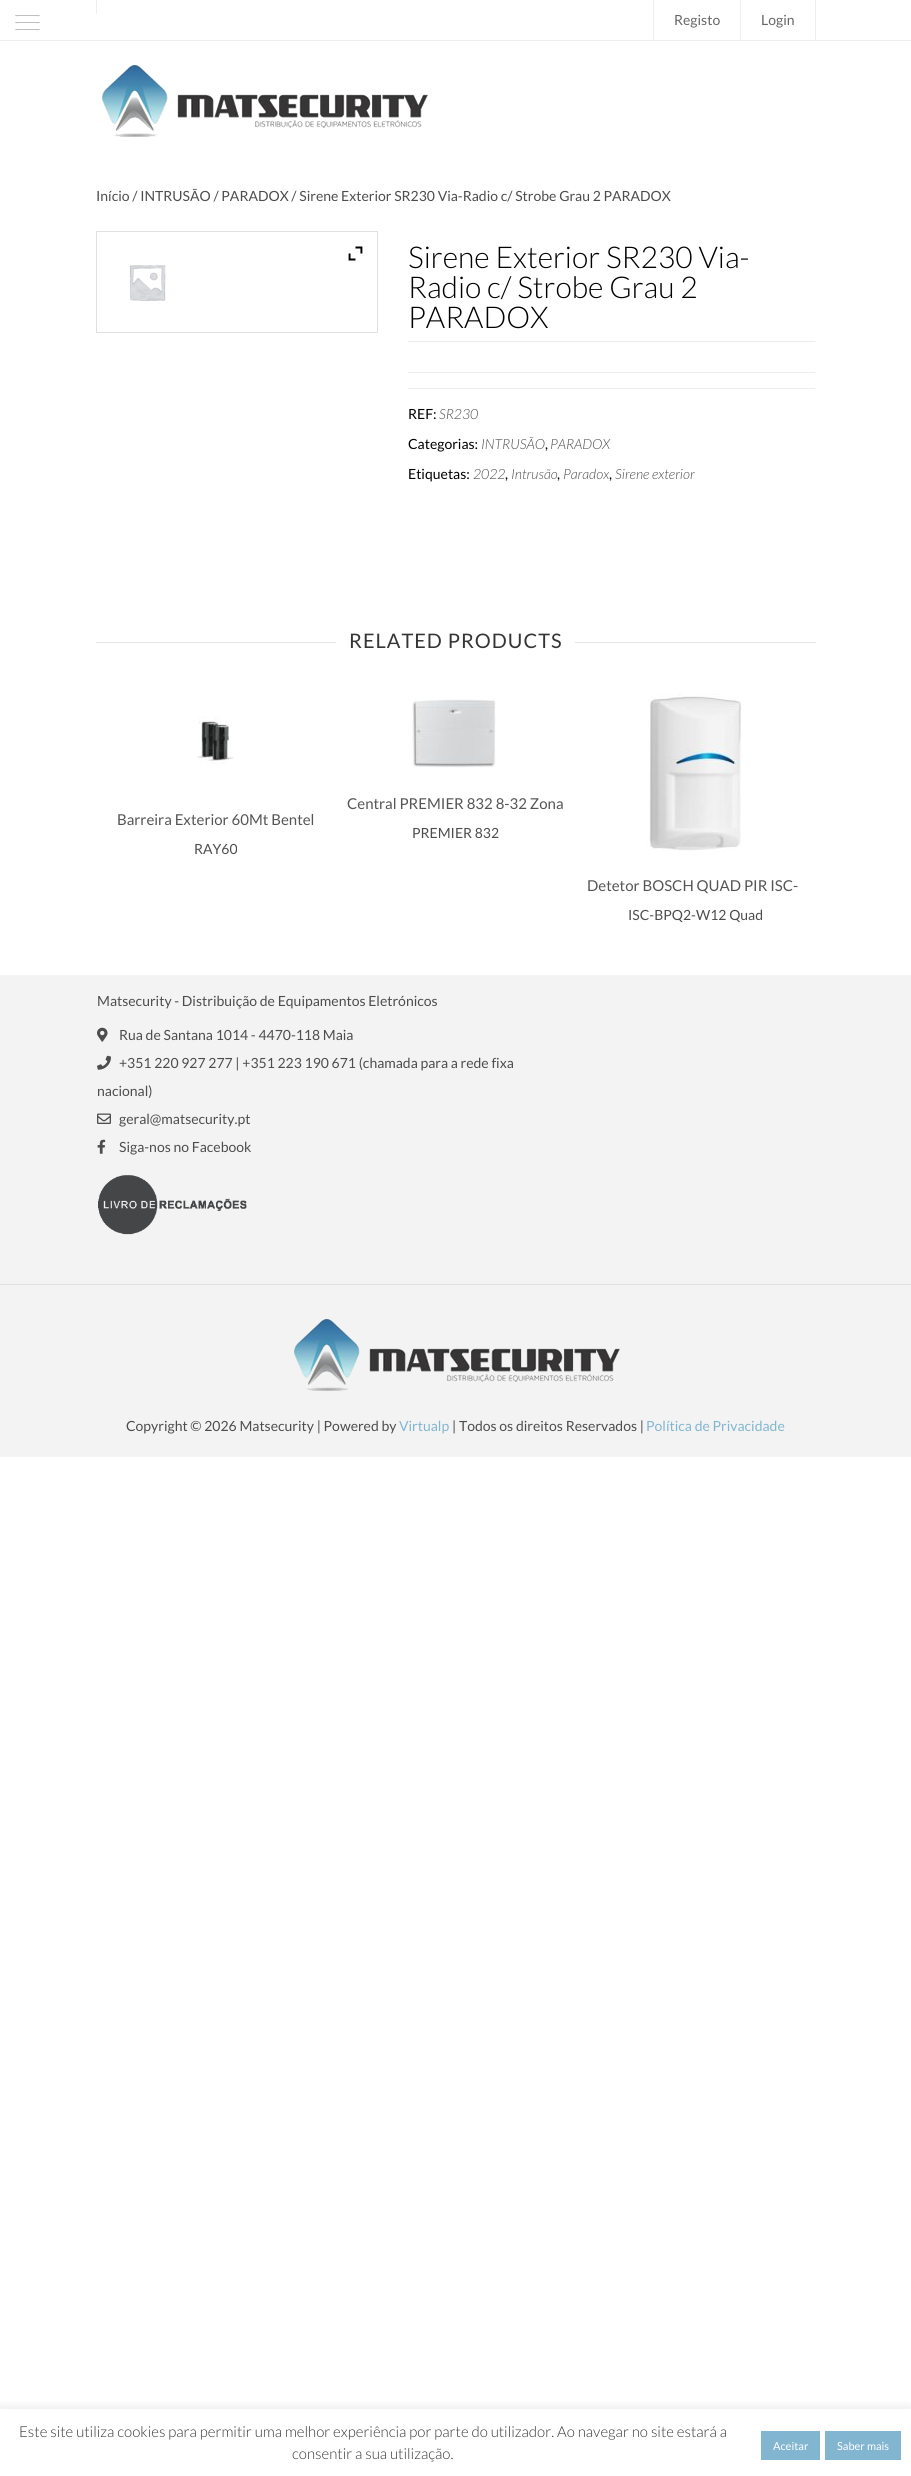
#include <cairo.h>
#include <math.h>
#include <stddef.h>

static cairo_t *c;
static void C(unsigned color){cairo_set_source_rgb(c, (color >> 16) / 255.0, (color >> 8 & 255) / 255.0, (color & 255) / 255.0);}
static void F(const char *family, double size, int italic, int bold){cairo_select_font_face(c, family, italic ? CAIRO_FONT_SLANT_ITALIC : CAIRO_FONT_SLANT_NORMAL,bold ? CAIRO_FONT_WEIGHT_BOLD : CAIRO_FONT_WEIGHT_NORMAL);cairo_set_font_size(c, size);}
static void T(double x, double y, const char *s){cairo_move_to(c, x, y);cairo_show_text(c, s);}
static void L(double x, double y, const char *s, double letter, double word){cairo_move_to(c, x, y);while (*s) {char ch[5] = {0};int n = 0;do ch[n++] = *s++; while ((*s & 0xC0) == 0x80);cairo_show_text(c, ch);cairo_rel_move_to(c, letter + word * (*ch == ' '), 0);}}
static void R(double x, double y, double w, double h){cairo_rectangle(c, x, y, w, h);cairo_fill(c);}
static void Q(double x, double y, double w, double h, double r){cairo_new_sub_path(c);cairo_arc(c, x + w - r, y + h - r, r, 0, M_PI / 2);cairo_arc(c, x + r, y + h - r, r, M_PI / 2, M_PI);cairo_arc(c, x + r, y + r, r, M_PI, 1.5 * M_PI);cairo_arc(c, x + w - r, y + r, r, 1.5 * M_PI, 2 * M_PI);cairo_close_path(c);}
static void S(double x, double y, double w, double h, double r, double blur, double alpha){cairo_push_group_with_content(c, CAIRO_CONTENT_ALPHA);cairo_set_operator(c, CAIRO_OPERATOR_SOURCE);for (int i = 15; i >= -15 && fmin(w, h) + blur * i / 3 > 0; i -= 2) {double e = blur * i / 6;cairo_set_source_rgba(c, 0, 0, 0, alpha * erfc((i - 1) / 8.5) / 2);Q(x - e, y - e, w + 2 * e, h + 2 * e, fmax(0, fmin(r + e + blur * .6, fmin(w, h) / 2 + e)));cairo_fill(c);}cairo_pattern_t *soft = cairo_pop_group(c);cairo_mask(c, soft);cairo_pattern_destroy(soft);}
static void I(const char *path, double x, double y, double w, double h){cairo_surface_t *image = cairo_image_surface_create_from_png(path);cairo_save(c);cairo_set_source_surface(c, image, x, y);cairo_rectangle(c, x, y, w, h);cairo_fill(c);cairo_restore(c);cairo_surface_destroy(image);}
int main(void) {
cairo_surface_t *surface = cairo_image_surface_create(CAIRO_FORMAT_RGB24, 911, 2476);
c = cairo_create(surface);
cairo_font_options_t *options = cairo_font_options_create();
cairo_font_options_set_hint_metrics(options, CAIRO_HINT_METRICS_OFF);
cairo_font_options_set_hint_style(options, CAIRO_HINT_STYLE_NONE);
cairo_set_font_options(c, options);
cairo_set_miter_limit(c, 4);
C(0xffffff);
cairo_paint(c);
C(0xbfbfbf);
cairo_new_path(c);
cairo_move_to(c,15,14);
cairo_curve_to(c,15,17,16.5,16,20,16);
cairo_line_to(c,35,16);
cairo_curve_to(c,38.5,16,40,17,40,14);
cairo_curve_to(c,40,14.5,39.5,15,39,15);
cairo_line_to(c,16,15);
cairo_curve_to(c,15.5,15,15,14.5,15,14);
cairo_close_path(c);
cairo_fill(c);
C(0xffffff);
Q(15,12,25,3,1);
cairo_fill(c);
C(0xbfbfbf);
cairo_new_path(c);
cairo_move_to(c,15,21);
cairo_curve_to(c,15,24,16.5,23,20,23);
cairo_line_to(c,35,23);
cairo_curve_to(c,38.5,23,40,24,40,21);
cairo_curve_to(c,40,21.5,39.5,22,39,22);
cairo_line_to(c,16,22);
cairo_curve_to(c,15.5,22,15,21.5,15,21);
cairo_close_path(c);
cairo_fill(c);
C(0xffffff);
Q(15,19,25,3,1);
cairo_fill(c);
C(0xbfbfbf);
cairo_new_path(c);
cairo_move_to(c,15,28);
cairo_curve_to(c,15,31,16.5,30,20,30);
cairo_line_to(c,35,30);
cairo_curve_to(c,38.5,30,40,31,40,28);
cairo_curve_to(c,40,28.5,39.5,29,39,29);
cairo_line_to(c,16,29);
cairo_curve_to(c,15.5,29,15,28.5,15,28);
cairo_close_path(c);
cairo_fill(c);
C(0xffffff);
Q(15,26,25,3,1);
cairo_fill(c);
C(0xeeeeee);
R(0,40,911,1);
R(96,0,1,14);
R(653,0,1,40);
F("Lato",14,0,0);
C(0x666666);
T(674,25,"Registo");
C(0xeeeeee);
R(815,0,1,40);
R(740,0,1,40);
C(0x666666);
T(761,25,"Login");
I("1.png",102,65,326,72);
C(0x4e4d4d);
T(96,201,"Início / INTRUSÃO / PARADOX / Sirene Exterior SR230 Via-Radio c/ Strobe Grau 2 PARADOX");
cairo_rectangle(c,96.5,231.5,281,101);
C(0xe0e0e0);
cairo_set_line_width(c,1);
cairo_stroke(c);
I("2.png",129,265,37,36);
I("3.png",348,246,15,15);
F("Lato Light",30,0,0);
C(0x000000);
T(408,268,"Sirene Exterior SR230 Via-");
T(408,298,"Radio c/ Strobe Grau 2");
T(408,328,"PARADOX");
C(0xececec);
R(408,341,407,1);
R(408,372,407,1);
R(408,388,407,1);
F("Lato",14,0,0);
C(0x000000);
T(408,419,"REF:");
F("Lato Light",14,1,0);
C(0x4e4d4d);
T(439,419,"SR230");
F("Lato",14,0,0);
C(0x000000);
T(408,449,"Categorias:");
F("Lato Light",14,1,0);
C(0x4e4d4d);
T(481,449,"INTRUSÃO");
F("Lato",14,0,0);
C(0x000000);
T(545,449,",");
F("Lato Light",14,1,0);
C(0x4e4d4d);
T(550,449,"PARADOX");
F("Lato",14,0,0);
C(0x000000);
T(408,479,"Etiquetas:");
F("Lato Light",14,1,0);
C(0x4e4d4d);
T(473,479,"2022");
F("Lato",14,0,0);
C(0x000000);
T(505,479,",");
F("Lato Light",14,1,0);
C(0x4e4d4d);
T(511,479,"Intrusão");
F("Lato",14,0,0);
C(0x000000);
T(557,479,",");
F("Lato Light",14,1,0);
C(0x4e4d4d);
T(563,479,"Paradox");
F("Lato",14,0,0);
C(0x000000);
T(609,479,",");
F("Lato Light",14,1,0);
C(0x4e4d4d);
T(615,479,"Sirene exterior");
C(0xe6e6e6);
R(96,642,240,1);
F("Lato",20,0,0);
C(0x353535);
L(349,648,"RELATED PRODUCTS",1,0);
C(0xe6e6e6);
R(575,642,241,1);
I("4.png",196,716,38,48);
F("Lato",15,0,0);
C(0x555555);
T(117,825,"Barreira Exterior 60Mt Bentel");
F("Lato",14,0,0);
C(0x4e4d4d);
T(194,854,"RAY60");
I("5.png",412,699,84,69);
F("Lato",15,0,0);
C(0x555555);
T(347,809,"Central PREMIER 832 8-32 Zona");
F("Lato",14,0,0);
C(0x4e4d4d);
T(412,838,"PREMIER 832");
I("6.png",646,693,96,158);
F("Lato",15,0,0);
C(0x555555);
T(587,891,"Detetor BOSCH QUAD PIR ISC-");
F("Lato",14,0,0);
C(0x4e4d4d);
T(628,920,"ISC-BPQ2-W12 Quad");
C(0xf3f3f3);
R(0,975,911,482);
C(0x4e4d4d);
T(97,1006,"Matsecurity - Distribuição de Equipamentos Eletrónicos");
I("7.png",97,1027,11,15);
T(119,1040,"Rua de Santana 1014 - 4470-118 Maia");
I("8.png",97,1055,14,15);
T(119,1068,"+351 220 927 277 | +351 223 190 671 (chamada para a rede fixa");
T(97,1096,"nacional)");
I("9.png",97,1113,14,11);
T(119,1124,"geral@matsecurity.pt");
I("10.png",97,1139,9,15);
T(119,1152,"Siga-nos no Facebook");
I("11.png",98,1175,149,60);
C(0xe0e0e0);
R(0,1284,911,1);
I("12.png",294,1319,326,72);
C(0x4e4d4d);
T(126,1431,"Copyright © 2026 Matsecurity | Powered by");
C(0x82b6d0);
T(399,1431,"Virtualp");
C(0x4e4d4d);
T(452,1431,"| Todos os direitos Reservados |");
C(0x82b6d0);
T(646,1431,"Política de Privacidade");
cairo_save(c);
cairo_rectangle(c,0,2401,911,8);
cairo_clip(c);
C(0xacabab);
S(0,2408,911,67,0,5,.3);
cairo_restore(c);
F("Lato Light",15,0,0);
C(0x353535);
T(19,2437,"Este site utiliza cookies para permitir uma melhor experiência por parte do utilizador. Ao navegar no site estará a");
T(292,2459,"consentir a sua utilização.");
C(0x82b6d0);
R(761,2431,59,29);
F("Lato",11,0,0);
C(0xffffff);
T(773,2450,"Aceitar");
C(0x82b6d0);
R(825,2431,76,29);
C(0xffffff);
T(837,2450,"Saber mais");
cairo_surface_write_to_png(surface, "o.png");
cairo_font_options_destroy(options);
cairo_destroy(c);
cairo_surface_destroy(surface);
return 0;
}
